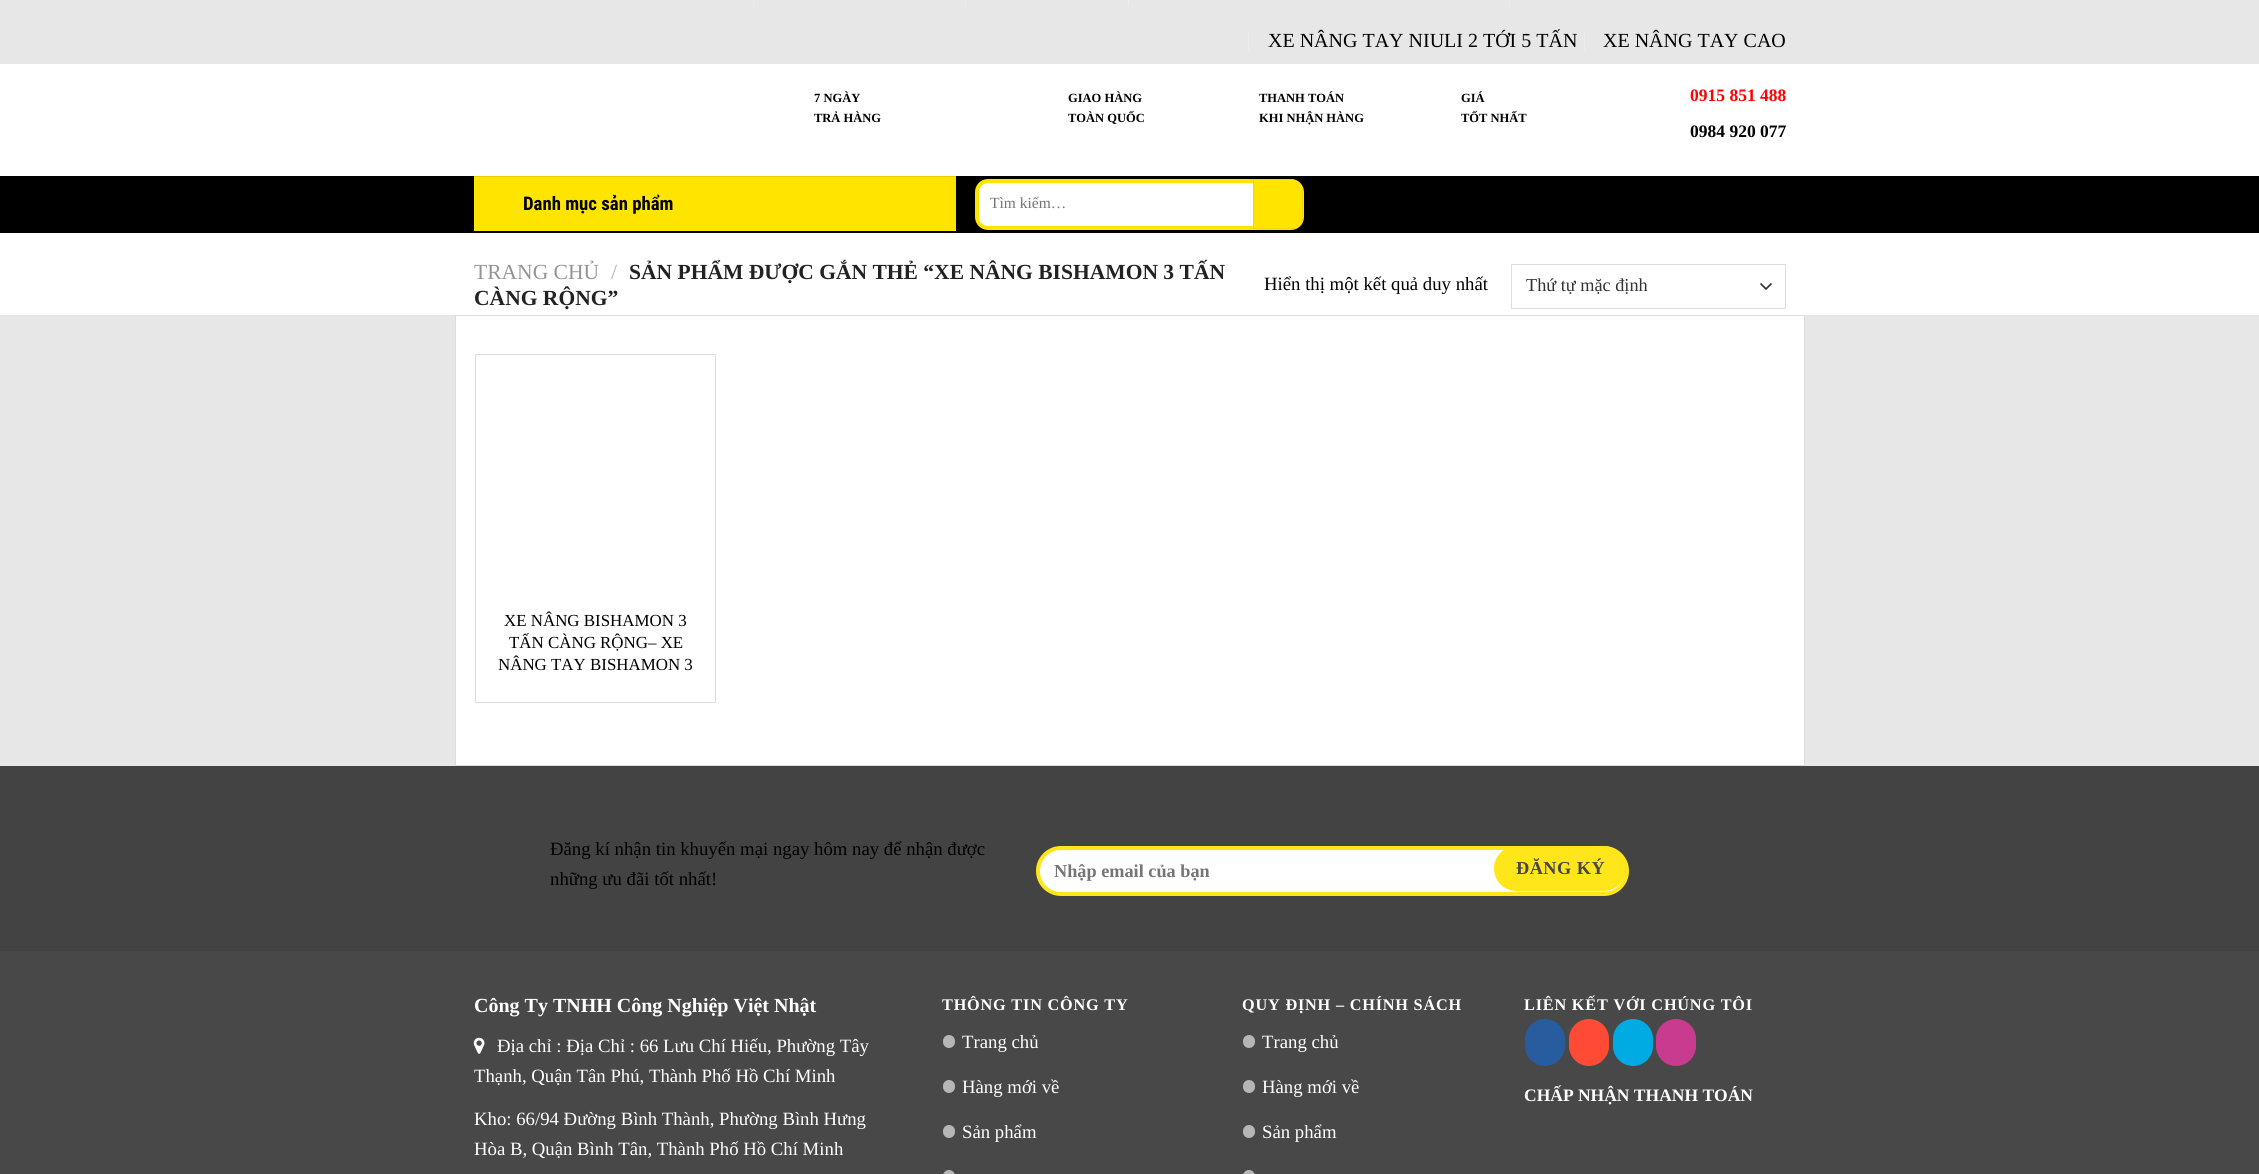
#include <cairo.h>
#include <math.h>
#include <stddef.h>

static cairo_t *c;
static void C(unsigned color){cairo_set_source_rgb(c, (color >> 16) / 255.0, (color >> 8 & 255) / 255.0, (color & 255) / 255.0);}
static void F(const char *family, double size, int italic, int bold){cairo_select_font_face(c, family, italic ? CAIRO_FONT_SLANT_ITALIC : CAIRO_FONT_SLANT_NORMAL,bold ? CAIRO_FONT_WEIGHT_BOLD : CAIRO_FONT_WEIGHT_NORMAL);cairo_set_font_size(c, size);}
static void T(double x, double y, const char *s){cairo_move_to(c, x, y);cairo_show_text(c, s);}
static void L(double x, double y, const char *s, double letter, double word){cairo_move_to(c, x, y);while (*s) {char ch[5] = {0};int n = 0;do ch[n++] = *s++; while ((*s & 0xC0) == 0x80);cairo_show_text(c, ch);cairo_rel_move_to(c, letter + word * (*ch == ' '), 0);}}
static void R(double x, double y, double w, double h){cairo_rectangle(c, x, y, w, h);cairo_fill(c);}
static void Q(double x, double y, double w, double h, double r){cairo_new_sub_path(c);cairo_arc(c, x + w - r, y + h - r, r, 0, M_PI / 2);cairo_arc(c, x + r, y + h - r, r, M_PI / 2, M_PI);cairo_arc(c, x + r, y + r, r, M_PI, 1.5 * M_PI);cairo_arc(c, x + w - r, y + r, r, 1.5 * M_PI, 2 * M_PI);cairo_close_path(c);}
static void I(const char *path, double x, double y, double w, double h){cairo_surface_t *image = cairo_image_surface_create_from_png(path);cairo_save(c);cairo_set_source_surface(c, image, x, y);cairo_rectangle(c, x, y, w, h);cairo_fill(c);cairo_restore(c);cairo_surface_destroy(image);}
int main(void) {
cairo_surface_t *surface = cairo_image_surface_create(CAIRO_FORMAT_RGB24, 2259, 1174);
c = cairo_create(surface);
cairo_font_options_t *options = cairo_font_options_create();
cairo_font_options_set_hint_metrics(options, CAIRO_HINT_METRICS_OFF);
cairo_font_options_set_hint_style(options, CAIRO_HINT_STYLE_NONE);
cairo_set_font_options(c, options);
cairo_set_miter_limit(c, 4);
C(0xffffff);
cairo_paint(c);
C(0xe7e7e7);
R(0,0,2259,64);
C(0xececec);
R(753,0,1,6);
R(965,0,1,6);
R(1128,0,1,6);
R(1509,0,1,6);
R(1248,33,1,18);
F("Liberation Serif",20,0,0);
C(0x000000);
T(1268,47,"XE NÂNG TAY NIULI 2 TỚI 5 TẤN");
C(0xececec);
R(1584,33,1,18);
C(0x000000);
T(1603,47,"XE NÂNG TAY CAO");
F("Liberation Serif",12.5,0,1);
T(814,102,"7 NGÀY");
T(814,122,"TRẢ HÀNG");
T(1068,102,"GIAO HÀNG");
T(1068,122,"TOÀN QUỐC");
T(1259,102,"THANH TOÁN");
T(1259,122,"KHI NHẬN HÀNG");
T(1461,102,"GIÁ");
T(1461,122,"TỐT NHẤT");
F("Liberation Serif",17.5,0,1);
C(0xff0000);
T(1690,101,"0915 851 488");
C(0x000000);
T(1690,137,"0984 920 077");
R(0,176,2259,57);
C(0xffe400);
R(474,177,482,54);
C(0xe6cd00);
R(474,176,482,1);
F("Roboto Condensed",18.75,0,1);
C(0x000000);
T(523,210,"Danh mục sản phẩm");
C(0xffffff);
Q(977,181,325,47,11);
cairo_fill_preserve(c);
C(0xffe400);
cairo_set_line_width(c,4);
cairo_stroke(c);
F("Liberation Serif",15.5,0,0);
C(0x757575);
T(990,208,"Tìm kiếm…");
C(0xffe400);
cairo_new_path(c);
cairo_move_to(c,1253,179);
cairo_line_to(c,1290,179);
cairo_curve_to(c,1297,179,1303,185,1303,192);
cairo_line_to(c,1303,216);
cairo_curve_to(c,1303,223,1297,229,1290,229);
cairo_line_to(c,1253,229);
cairo_close_path(c);
cairo_fill(c);
cairo_rectangle(c,1253.5,179.5,49,49);
cairo_set_source_rgba(c,0,0,0,0.05);
cairo_set_line_width(c,1);
cairo_stroke(c);
F("Liberation Serif",21.55,0,0);
C(0x949494);
T(474,279,"TRANG CHỦ");
C(0xb2b2b2);
T(611,279,"/");
F("Liberation Serif",21.55,0,1);
C(0x222222);
T(629,279,"SẢN PHẨM ĐƯỢC GẮN THẺ “XE NÂNG BISHAMON 3 TẤN");
T(474,305,"CÀNG RỘNG”");
F("Liberation Serif",18.75,0,0);
C(0x000000);
T(1264,290,"Hiển thị một kết quả duy nhất");
cairo_new_path(c);
cairo_move_to(c,1761,284);
cairo_line_to(c,1766,289);
cairo_line_to(c,1771,284);
C(0x333333);
cairo_set_line_width(c,1.7);
cairo_set_line_cap(c,CAIRO_LINE_CAP_ROUND);
cairo_set_line_join(c,CAIRO_LINE_JOIN_ROUND);
cairo_stroke(c);
cairo_rectangle(c,1511.5,264.5,274,44);
C(0xdddddd);
cairo_set_line_width(c,1);
cairo_set_line_cap(c,CAIRO_LINE_CAP_BUTT);
cairo_set_line_join(c,CAIRO_LINE_JOIN_MITER);
cairo_stroke(c);
F("Liberation Serif",18.25,0,0);
C(0x333333);
T(1526,291,"Thứ tự mặc định");
C(0xe7e7e7);
R(0,315,2259,451);
C(0xffffff);
cairo_rectangle(c,455.5,315.5,1349,450);
cairo_fill_preserve(c);
C(0xdddddd);
cairo_stroke(c);
cairo_rectangle(c,475.5,354.5,240,348);
cairo_stroke(c);
F("Liberation Serif",16.9,0,0);
C(0x000000);
T(504,626,"XE NÂNG BISHAMON 3");
T(509,648,"TẤN CÀNG RỘNG– XE");
T(498,670,"NÂNG TAY BISHAMON 3");
C(0x434343);
R(0,766,2259,185);
F("Liberation Serif",18.75,0,0);
C(0x000000);
T(550,855,"Đăng kí nhận tin khuyến mại ngay hôm nay để nhận được");
T(550,885,"những ưu đãi tốt nhất!");
C(0xffffff);
Q(1038,848,589,46,23);
cairo_fill_preserve(c);
C(0xfee61b);
cairo_set_line_width(c,4);
cairo_stroke(c);
F("Liberation Serif",18.25,0,1);
C(0x757575);
T(1054,877,"Nhập email của bạn");
C(0xfee61b);
Q(1494,846,132,45,22.5);
cairo_fill(c);
C(0x474747);
L(1516,874,"ĐĂNG KÝ",.5,0);
C(0x484848);
R(0,951,2259,223);
F("Liberation Serif",20,0,1);
C(0xffffff);
T(474,1012,"Công Ty TNHH Công Nghiệp Việt Nhật");
I("1.png",473,1037,12,17);
F("Liberation Serif",18.75,0,0);
T(497,1052,"Địa chỉ : Địa Chỉ : 66 Lưu Chí Hiếu, Phường Tây");
T(474,1082,"Thạnh, Quận Tân Phú, Thành Phố Hồ Chí Minh");
T(474,1125,"Kho: 66/94 Đường Bình Thành, Phường Bình Hưng");
T(474,1155,"Hòa B, Quận Bình Tân, Thành Phố Hồ Chí Minh");
F("Liberation Serif",16.25,0,1);
L(942,1010,"THÔNG TIN CÔNG TY",.8,0);
C(0xb6b6b6);
Q(943,1035,12,13,6);
cairo_fill(c);
F("Liberation Serif",18.75,0,0);
C(0xffffff);
T(962,1048,"Trang chủ");
C(0xb6b6b6);
Q(943,1080,12,13,6);
cairo_fill(c);
C(0xffffff);
T(962,1093,"Hàng mới về");
C(0xb6b6b6);
Q(943,1125,12,13,6);
cairo_fill(c);
C(0xffffff);
T(962,1138,"Sản phẩm");
C(0xb6b6b6);
Q(943,1170,12,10,6);
cairo_fill(c);
F("Liberation Serif",16.25,0,1);
C(0xffffff);
L(1242,1010,"QUY ĐỊNH – CHÍNH SÁCH",.8,0);
C(0xb6b6b6);
Q(1243,1035,12,13,6);
cairo_fill(c);
F("Liberation Serif",18.75,0,0);
C(0xffffff);
T(1262,1048,"Trang chủ");
C(0xb6b6b6);
Q(1243,1080,12,13,6);
cairo_fill(c);
C(0xffffff);
T(1262,1093,"Hàng mới về");
C(0xb6b6b6);
Q(1243,1125,12,13,6);
cairo_fill(c);
C(0xffffff);
T(1262,1138,"Sản phẩm");
C(0xb6b6b6);
Q(1243,1170,12,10,6);
cairo_fill(c);
F("Liberation Serif",16.25,0,1);
C(0xffffff);
L(1524,1010,"LIÊN KẾT VỚI CHÚNG TÔI",.8,0);
C(0x275c9e);
Q(1525,1019,40,47,20);
cairo_fill(c);
C(0xff4a35);
Q(1569,1019,40,47,20);
cairo_fill(c);
C(0x00abe3);
Q(1613,1019,40,47,20);
cairo_fill(c);
C(0xc93b8e);
Q(1656,1019,40,47,20);
cairo_fill(c);
F("Liberation Serif",17.5,0,1);
C(0xffffff);
T(1524,1101,"CHẤP NHẬN THANH TOÁN");
cairo_surface_write_to_png(surface, "o.png");
cairo_font_options_destroy(options);
cairo_destroy(c);
cairo_surface_destroy(surface);
return 0;
}
